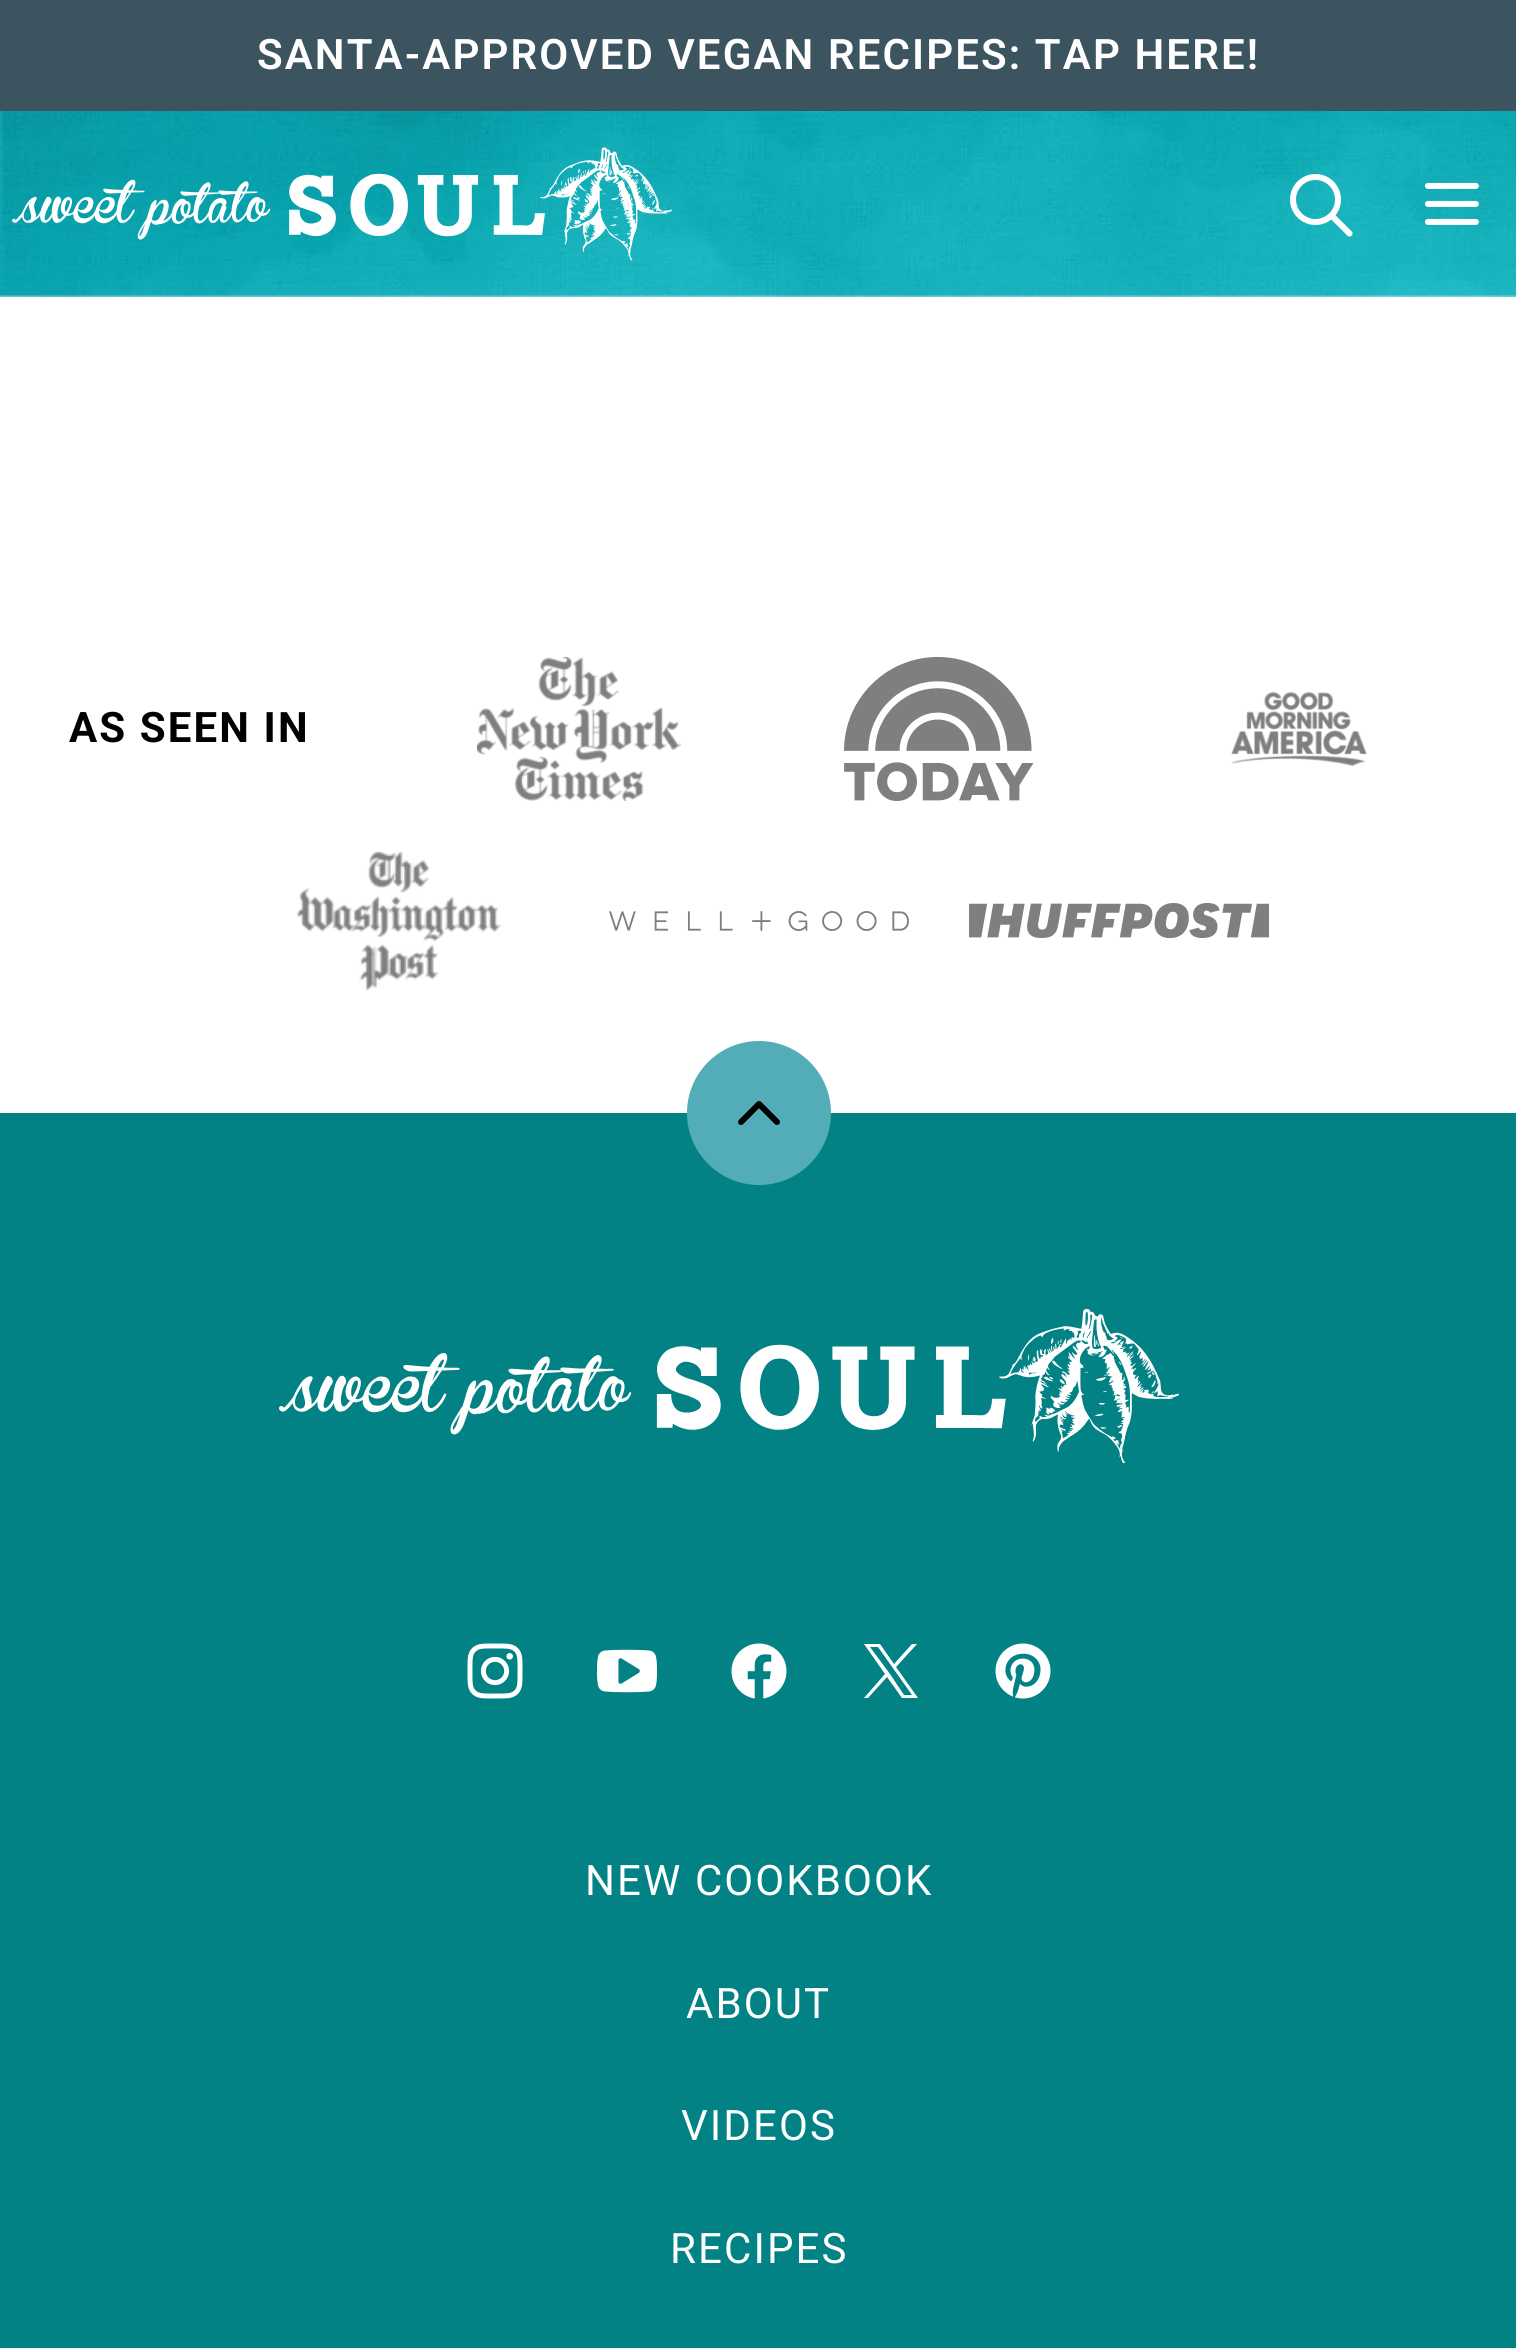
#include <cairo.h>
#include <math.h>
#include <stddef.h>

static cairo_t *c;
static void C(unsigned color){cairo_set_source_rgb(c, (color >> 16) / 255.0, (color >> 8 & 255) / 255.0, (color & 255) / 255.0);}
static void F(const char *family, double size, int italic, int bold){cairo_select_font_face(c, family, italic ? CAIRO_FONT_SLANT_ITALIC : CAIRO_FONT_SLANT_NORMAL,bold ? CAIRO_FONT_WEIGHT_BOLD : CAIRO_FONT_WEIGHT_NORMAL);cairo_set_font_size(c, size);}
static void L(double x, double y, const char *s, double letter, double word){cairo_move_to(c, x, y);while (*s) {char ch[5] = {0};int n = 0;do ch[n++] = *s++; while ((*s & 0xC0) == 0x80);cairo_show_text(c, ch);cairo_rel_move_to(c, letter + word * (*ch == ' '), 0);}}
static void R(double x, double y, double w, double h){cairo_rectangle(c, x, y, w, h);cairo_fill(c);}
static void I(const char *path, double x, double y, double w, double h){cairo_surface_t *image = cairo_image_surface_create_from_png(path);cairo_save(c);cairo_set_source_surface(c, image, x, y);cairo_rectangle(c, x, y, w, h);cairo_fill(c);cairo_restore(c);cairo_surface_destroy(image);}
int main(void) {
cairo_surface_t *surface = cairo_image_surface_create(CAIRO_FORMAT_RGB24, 1516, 2348);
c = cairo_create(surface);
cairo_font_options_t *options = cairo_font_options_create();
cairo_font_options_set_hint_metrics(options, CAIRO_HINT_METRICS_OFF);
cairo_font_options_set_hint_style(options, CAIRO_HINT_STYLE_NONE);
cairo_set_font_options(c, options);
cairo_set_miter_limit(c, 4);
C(0xffffff);
cairo_paint(c);
C(0x3b5460);
R(0,0,1516,111);
F("Roboto SemiBold",42,0,0);
C(0xffffff);
L(257,69,"SANTA-APPROVED VEGAN RECIPES: TAP HERE!",2.1,0);
I("1.png",0,111,1516,186);
I("2.png",12,147,660,114);
I("3.png",1290,174,63,63);
I("4.png",1425,182,54,43);
F("Roboto",42,0,1);
C(0x000000);
L(69,742,"AS SEEN IN",2.1,0);
I("5.png",477,657,204,144);
I("6.png",844,657,190,144);
I("7.png",1231,691,136,76);
I("8.png",297,851,204,140);
I("9.png",609,911,300,20);
I("10.png",969,903,300,36);
C(0x028284);
R(0,1113,1516,1235);
C(0x52adb8);
cairo_arc(c,759,1113,72,0,2 * M_PI);
cairo_fill(c);
I("11.png",738,1101,42,24);
I("12.png",279,1309,900,154);
I("13.png",467,1643,56,56);
I("14.png",597,1649,60,44);
I("15.png",731,1643,56,56);
C(0xffffff);
cairo_new_path(c);
cairo_move_to(c,896,1667);
cairo_line_to(c,917,1644);
cairo_line_to(c,912,1644);
cairo_line_to(c,894,1664);
cairo_line_to(c,880,1644);
cairo_line_to(c,864,1644);
cairo_line_to(c,885,1674);
cairo_line_to(c,864,1698);
cairo_line_to(c,868,1698);
cairo_line_to(c,887,1677);
cairo_line_to(c,902,1698);
cairo_line_to(c,918,1698);
cairo_close_path(c);
cairo_move_to(c,890,1674);
cairo_line_to(c,870,1647);
cairo_line_to(c,878,1647);
cairo_line_to(c,912,1695);
cairo_line_to(c,904,1695);
cairo_close_path(c);
cairo_fill(c);
I("16.png",995,1643,56,56);
F("Roboto",42,0,0);
L(585,1895,"NEW COOKBOOK",2.1,0);
L(686,2018,"ABOUT",2.1,0);
L(681,2140,"VIDEOS",2.1,0);
L(670,2263,"RECIPES",2.1,0);
cairo_surface_write_to_png(surface, "o.png");
cairo_font_options_destroy(options);
cairo_destroy(c);
cairo_surface_destroy(surface);
return 0;
}
